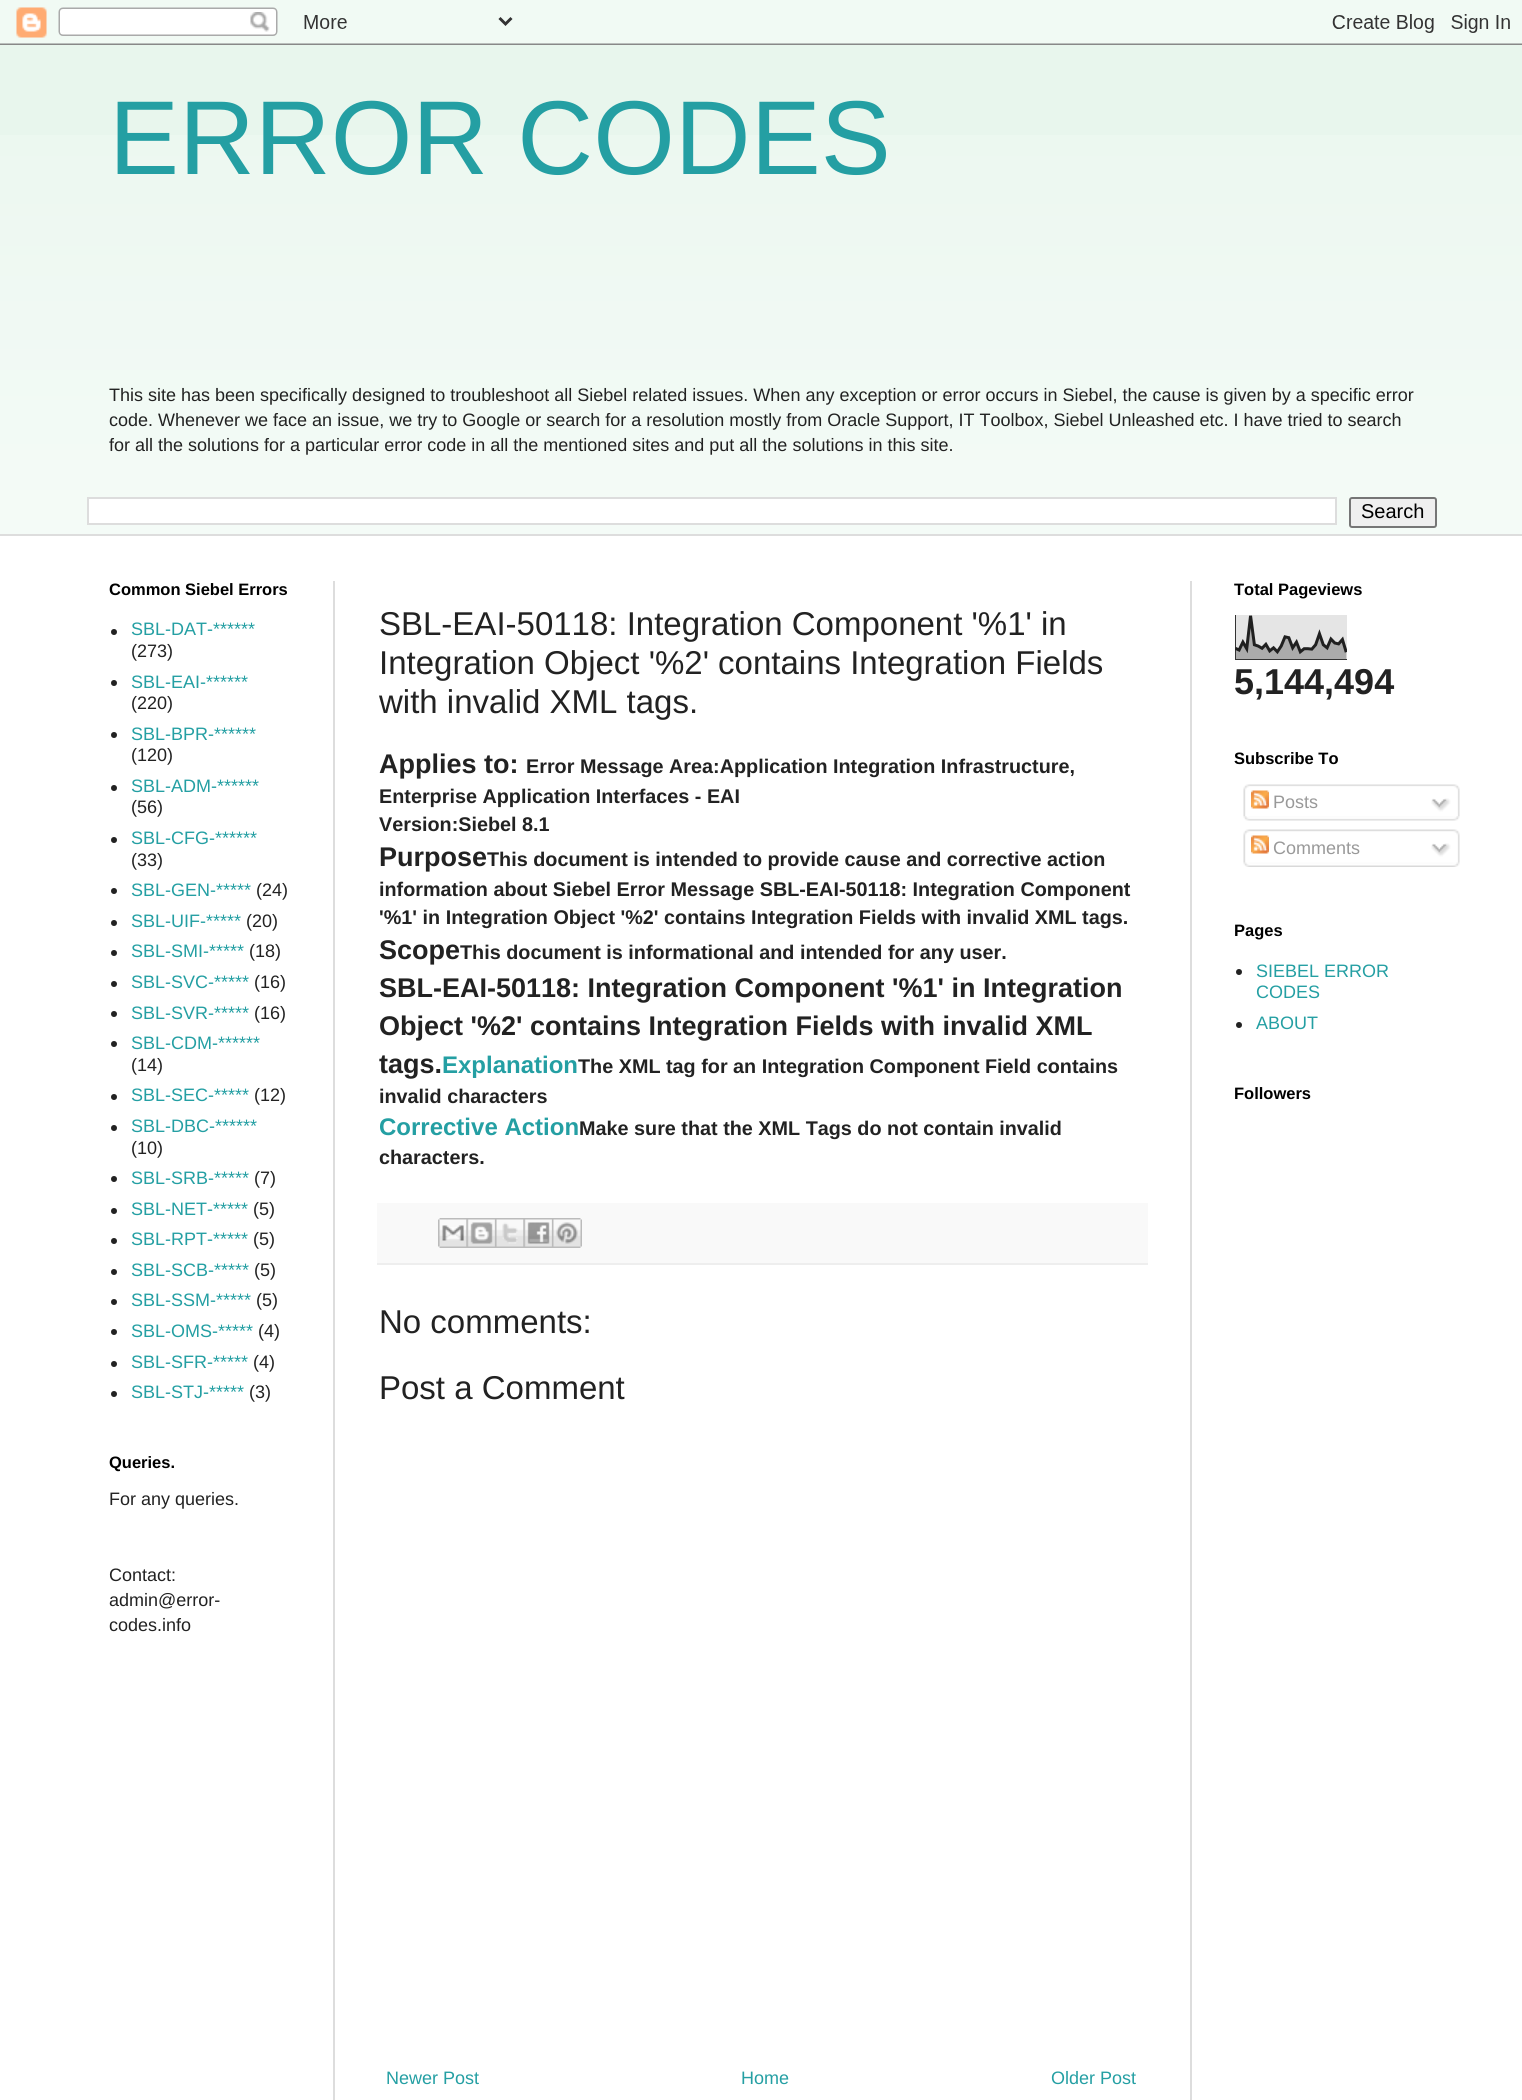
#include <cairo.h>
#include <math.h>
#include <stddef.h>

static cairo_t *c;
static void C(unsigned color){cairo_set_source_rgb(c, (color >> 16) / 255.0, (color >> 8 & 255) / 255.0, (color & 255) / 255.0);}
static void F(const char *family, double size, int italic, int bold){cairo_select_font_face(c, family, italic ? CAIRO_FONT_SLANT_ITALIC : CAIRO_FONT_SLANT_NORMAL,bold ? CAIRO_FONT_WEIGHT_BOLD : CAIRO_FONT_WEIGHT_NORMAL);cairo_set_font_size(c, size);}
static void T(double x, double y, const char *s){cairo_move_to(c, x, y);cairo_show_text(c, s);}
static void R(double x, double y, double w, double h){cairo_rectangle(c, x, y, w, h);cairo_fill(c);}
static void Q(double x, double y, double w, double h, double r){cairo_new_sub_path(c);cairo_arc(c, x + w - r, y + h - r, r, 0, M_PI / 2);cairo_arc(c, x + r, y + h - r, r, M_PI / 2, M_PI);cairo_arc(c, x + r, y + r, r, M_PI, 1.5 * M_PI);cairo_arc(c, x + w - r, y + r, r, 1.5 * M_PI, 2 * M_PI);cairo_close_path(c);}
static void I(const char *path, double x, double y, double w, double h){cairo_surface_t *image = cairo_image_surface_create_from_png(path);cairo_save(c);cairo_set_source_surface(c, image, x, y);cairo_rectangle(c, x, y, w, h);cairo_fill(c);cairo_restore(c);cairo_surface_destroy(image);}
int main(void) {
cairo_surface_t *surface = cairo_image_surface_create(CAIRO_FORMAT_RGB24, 1522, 2100);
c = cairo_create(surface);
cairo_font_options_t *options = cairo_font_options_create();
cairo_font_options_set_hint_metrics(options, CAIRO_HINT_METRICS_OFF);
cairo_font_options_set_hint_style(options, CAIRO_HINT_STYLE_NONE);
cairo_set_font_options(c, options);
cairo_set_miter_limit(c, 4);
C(0xe8f6ed);
cairo_paint(c);
I("1.png",0,0,1522,45);
I("14.png",0,135,1522,399);
F("Liberation Sans",105,0,0);
C(0x249fa3);
T(109,174,"ERROR CODES");
F("Liberation Sans",18,0,0);
C(0x222222);
T(109,401,"This site has been specifically designed to troubleshoot all Siebel related issues. When any exception or error occurs in Siebel, the cause is given by a specific error");
T(109,426,"code. Whenever we face an issue, we try to Google or search for a resolution mostly from Oracle Support, IT Toolbox, Siebel Unleashed etc. I have tried to search");
T(109,451,"for all the solutions for a particular error code in all the mentioned sites and put all the solutions in this site.");
C(0xffffff);
cairo_rectangle(c,88,498,1248,26);
cairo_fill_preserve(c);
C(0xdddddd);
cairo_stroke(c);
C(0xefefef);
Q(1350,498,86,29,2);
cairo_fill_preserve(c);
C(0x767676);
cairo_stroke(c);
F("Liberation Sans",20,0,0);
C(0x000000);
T(1361,518,"Search");
C(0xffffff);
R(0,536,1522,1564);
C(0xdddddd);
R(0,534,1522,2);
R(333,581,2,1519);
R(1190,581,2,1519);
F("Liberation Sans",16.5,0,1);
C(0x000000);
T(109,595,"Common Siebel Errors");
C(0x222222);
cairo_new_path(c);
cairo_arc(c,114,632,3,0,2 * M_PI);
cairo_fill(c);
F("Liberation Sans",18,0,0);
C(0x249fa3);
T(131,635,"SBL-DAT-******");
C(0x222222);
T(131,657,"(273)");
cairo_new_path(c);
cairo_arc(c,114,683,3,0,2 * M_PI);
cairo_fill(c);
C(0x249fa3);
T(131,688,"SBL-EAI-******");
C(0x222222);
T(131,709,"(220)");
cairo_new_path(c);
cairo_arc(c,114,735,3,0,2 * M_PI);
cairo_fill(c);
C(0x249fa3);
T(131,740,"SBL-BPR-******");
C(0x222222);
T(131,761,"(120)");
cairo_new_path(c);
cairo_arc(c,114,788,3,0,2 * M_PI);
cairo_fill(c);
C(0x249fa3);
T(131,792,"SBL-ADM-******");
C(0x222222);
T(131,813,"(56)");
cairo_new_path(c);
cairo_arc(c,114,840,3,0,2 * M_PI);
cairo_fill(c);
C(0x249fa3);
T(131,844,"SBL-CFG-******");
C(0x222222);
T(131,866,"(33)");
cairo_new_path(c);
cairo_arc(c,114,891,3,0,2 * M_PI);
cairo_fill(c);
C(0x249fa3);
T(131,896,"SBL-GEN-*****");
C(0x222222);
T(256,896,"(24)");
cairo_new_path(c);
cairo_arc(c,114,923,3,0,2 * M_PI);
cairo_fill(c);
C(0x249fa3);
T(131,927,"SBL-UIF-*****");
C(0x222222);
T(246,927,"(20)");
cairo_new_path(c);
cairo_arc(c,114,953,3,0,2 * M_PI);
cairo_fill(c);
C(0x249fa3);
T(131,957,"SBL-SMI-*****");
C(0x222222);
T(249,957,"(18)");
cairo_new_path(c);
cairo_arc(c,114,984,3,0,2 * M_PI);
cairo_fill(c);
C(0x249fa3);
T(131,988,"SBL-SVC-*****");
C(0x222222);
T(254,988,"(16)");
cairo_new_path(c);
cairo_arc(c,114,1014,3,0,2 * M_PI);
cairo_fill(c);
C(0x249fa3);
T(131,1019,"SBL-SVR-*****");
C(0x222222);
T(254,1019,"(16)");
cairo_new_path(c);
cairo_arc(c,114,1044,3,0,2 * M_PI);
cairo_fill(c);
C(0x249fa3);
T(131,1049,"SBL-CDM-******");
C(0x222222);
T(131,1071,"(14)");
cairo_new_path(c);
cairo_arc(c,114,1097,3,0,2 * M_PI);
cairo_fill(c);
C(0x249fa3);
T(131,1101,"SBL-SEC-*****");
C(0x222222);
T(254,1101,"(12)");
cairo_new_path(c);
cairo_arc(c,114,1128,3,0,2 * M_PI);
cairo_fill(c);
C(0x249fa3);
T(131,1132,"SBL-DBC-******");
C(0x222222);
T(131,1154,"(10)");
cairo_new_path(c);
cairo_arc(c,114,1179,3,0,2 * M_PI);
cairo_fill(c);
C(0x249fa3);
T(131,1184,"SBL-SRB-*****");
C(0x222222);
T(254,1184,"(7)");
cairo_new_path(c);
cairo_arc(c,114,1211,3,0,2 * M_PI);
cairo_fill(c);
C(0x249fa3);
T(131,1215,"SBL-NET-*****");
C(0x222222);
T(253,1215,"(5)");
cairo_new_path(c);
cairo_arc(c,114,1241,3,0,2 * M_PI);
cairo_fill(c);
C(0x249fa3);
T(131,1245,"SBL-RPT-*****");
C(0x222222);
T(253,1245,"(5)");
cairo_new_path(c);
cairo_arc(c,114,1272,3,0,2 * M_PI);
cairo_fill(c);
C(0x249fa3);
T(131,1276,"SBL-SCB-*****");
C(0x222222);
T(254,1276,"(5)");
cairo_new_path(c);
cairo_arc(c,114,1302,3,0,2 * M_PI);
cairo_fill(c);
C(0x249fa3);
T(131,1306,"SBL-SSM-*****");
C(0x222222);
T(256,1306,"(5)");
cairo_new_path(c);
cairo_arc(c,114,1332,3,0,2 * M_PI);
cairo_fill(c);
C(0x249fa3);
T(131,1337,"SBL-OMS-*****");
C(0x222222);
T(258,1337,"(4)");
cairo_new_path(c);
cairo_arc(c,114,1364,3,0,2 * M_PI);
cairo_fill(c);
C(0x249fa3);
T(131,1368,"SBL-SFR-*****");
C(0x222222);
T(253,1368,"(4)");
cairo_new_path(c);
cairo_arc(c,114,1394,3,0,2 * M_PI);
cairo_fill(c);
C(0x249fa3);
T(131,1398,"SBL-STJ-*****");
C(0x222222);
T(249,1398,"(3)");
F("Liberation Sans",16.5,0,1);
C(0x000000);
T(109,1468,"Queries.");
F("Liberation Sans",18,0,0);
C(0x222222);
T(109,1505,"For any queries.");
T(109,1581,"Contact:");
T(109,1606,"admin@error-");
T(109,1631,"codes.info");
F("Liberation Sans",33,0,0);
T(379,635,"SBL-EAI-50118: Integration Component '%1' in");
T(379,674,"Integration Object '%2' contains Integration Fields");
T(379,713,"with invalid XML tags.");
F("Liberation Sans",27,0,1);
T(379,773,"Applies to:");
F("Liberation Sans",19.8,0,1);
T(526,773,"Error Message Area:Application Integration Infrastructure,");
T(379,803,"Enterprise Application Interfaces - EAI");
T(379,831,"Version:Siebel 8.1");
F("Liberation Sans",27,0,1);
T(379,866,"Purpose");
F("Liberation Sans",19.8,0,1);
T(487,866,"This document is intended to provide cause and corrective action");
T(379,896,"information about Siebel Error Message SBL-EAI-50118: Integration Component");
T(379,924,"'%1' in Integration Object '%2' contains Integration Fields with invalid XML tags.");
F("Liberation Sans",27,0,1);
T(379,959,"Scope");
F("Liberation Sans",19.8,0,1);
T(460,959,"This document is informational and intended for any user.");
F("Liberation Sans",27,0,1);
T(379,997,"SBL-EAI-50118: Integration Component '%1' in Integration");
T(379,1035,"Object '%2' contains Integration Fields with invalid XML");
T(379,1073,"tags.");
F("Liberation Sans",24,0,1);
C(0x249fa3);
T(442,1073,"Explanation");
F("Liberation Sans",19.8,0,1);
C(0x222222);
T(578,1073,"The XML tag for an Integration Component Field contains");
T(379,1103,"invalid characters");
F("Liberation Sans",24,0,1);
C(0x249fa3);
T(379,1135,"Corrective Action");
F("Liberation Sans",19.8,0,1);
C(0x222222);
T(579,1135,"Make sure that the XML Tags do not contain invalid");
T(379,1164,"characters.");
C(0xf9f9f9);
R(377,1203,771,60);
C(0xeeeeee);
R(377,1263,771,2);
I("2.png",438,1218,29,30);
I("3.png",466,1218,29,30);
I("4.png",495,1218,29,30);
I("5.png",523,1218,29,30);
I("6.png",552,1218,30,30);
F("Liberation Sans",33,0,0);
C(0x222222);
T(379,1333,"No comments:");
T(379,1399,"Post a Comment");
F("Liberation Sans",18,0,0);
C(0x249fa3);
T(386,2084,"Newer Post");
T(741,2084,"Home");
T(1051,2084,"Older Post");
F("Liberation Sans",16.5,0,1);
C(0x000000);
T(1234,595,"Total Pageviews");
I("7.png",1235,615,112,45);
F("Liberation Sans",36,0,1);
C(0x222222);
T(1234,694,"5,144,494");
F("Liberation Sans",16.5,0,1);
C(0x000000);
T(1234,764,"Subscribe To");
I("8.png",1243,784,217,32);
I("9.png",1251,790,18,19);
F("Liberation Sans",18,0,0);
C(0x999999);
T(1273,808,"Posts");
I("10.png",1431,798,20,14);
I("11.png",1243,816,217,5);
I("12.png",1243,829,217,34);
I("9.png",1251,835,18,19);
T(1273,854,"Comments");
I("10.png",1431,843,20,14);
I("13.png",1243,862,217,5);
F("Liberation Sans",16.5,0,1);
C(0x000000);
T(1234,936,"Pages");
C(0x222222);
cairo_new_path(c);
cairo_arc(c,1239,972,3,0,2 * M_PI);
cairo_fill(c);
F("Liberation Sans",18,0,0);
C(0x249fa3);
T(1256,977,"SIEBEL ERROR");
T(1256,998,"CODES");
C(0x222222);
cairo_new_path(c);
cairo_arc(c,1239,1025,3,0,2 * M_PI);
cairo_fill(c);
C(0x249fa3);
T(1256,1029,"ABOUT");
F("Liberation Sans",16.5,0,1);
C(0x000000);
T(1234,1099,"Followers");
cairo_surface_write_to_png(surface, "o.png");
cairo_font_options_destroy(options);
cairo_destroy(c);
cairo_surface_destroy(surface);
return 0;
}
